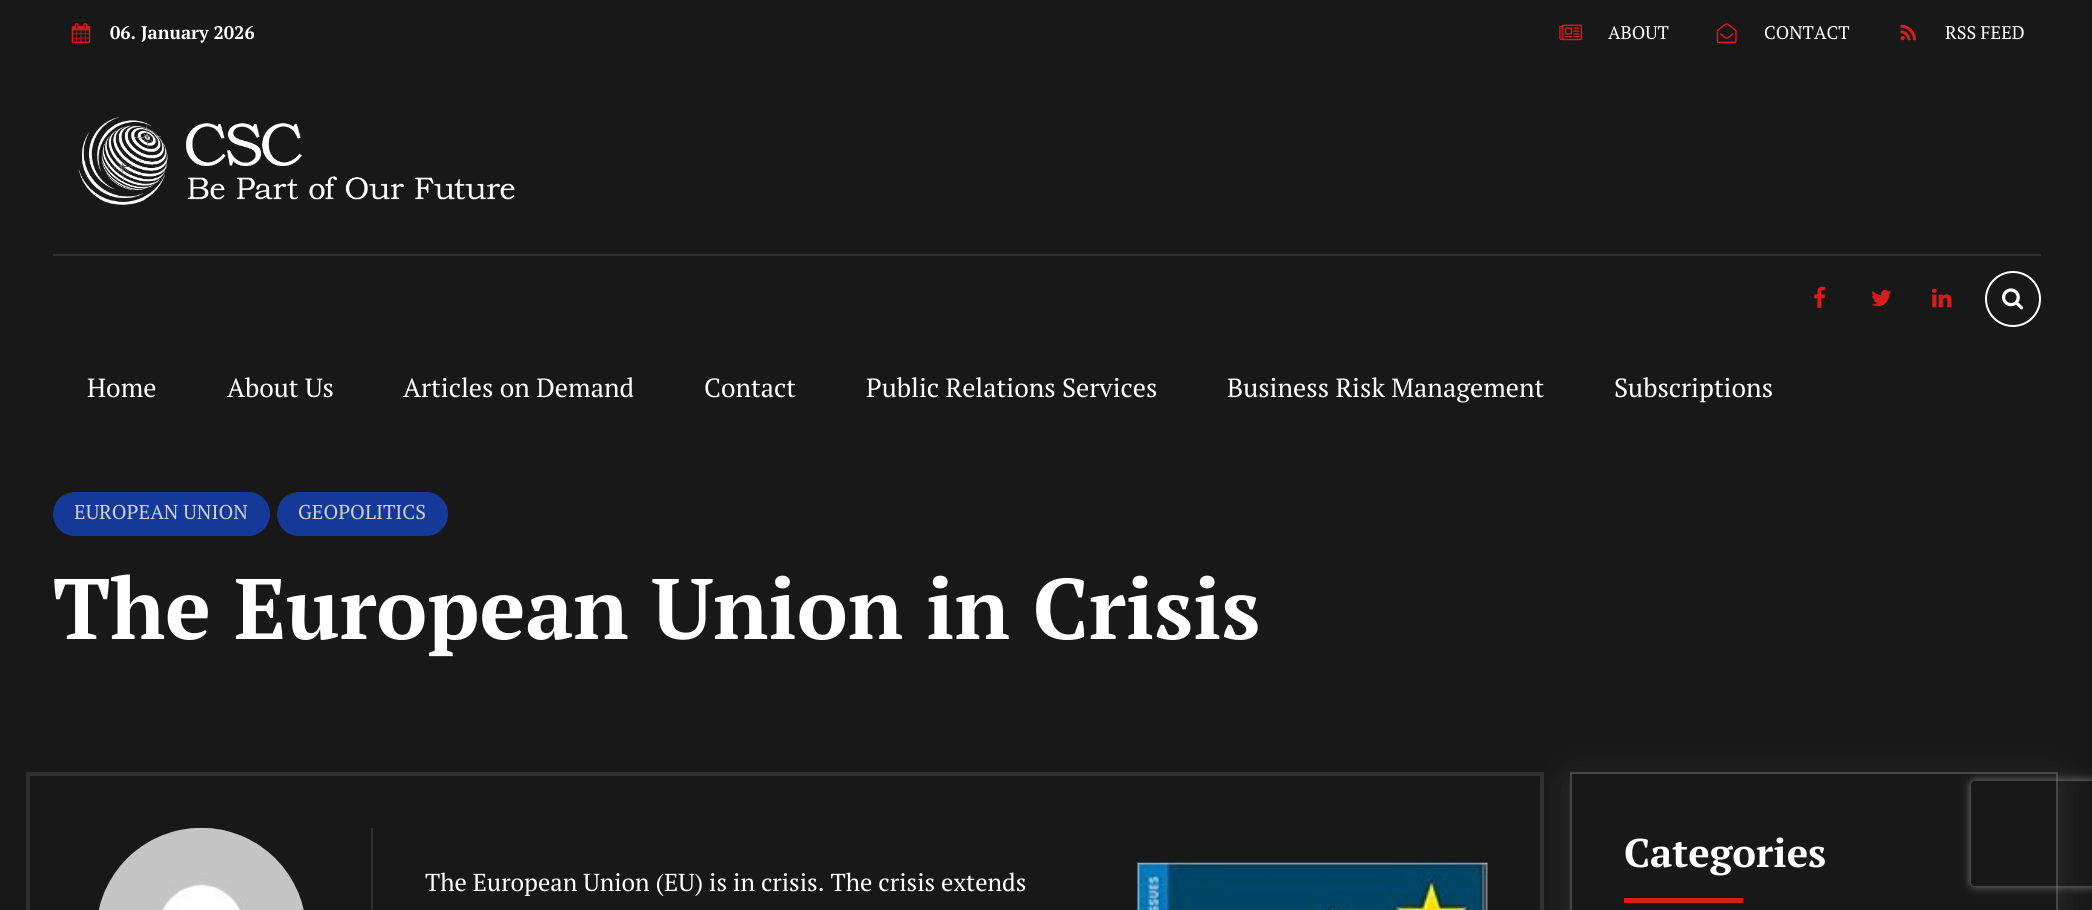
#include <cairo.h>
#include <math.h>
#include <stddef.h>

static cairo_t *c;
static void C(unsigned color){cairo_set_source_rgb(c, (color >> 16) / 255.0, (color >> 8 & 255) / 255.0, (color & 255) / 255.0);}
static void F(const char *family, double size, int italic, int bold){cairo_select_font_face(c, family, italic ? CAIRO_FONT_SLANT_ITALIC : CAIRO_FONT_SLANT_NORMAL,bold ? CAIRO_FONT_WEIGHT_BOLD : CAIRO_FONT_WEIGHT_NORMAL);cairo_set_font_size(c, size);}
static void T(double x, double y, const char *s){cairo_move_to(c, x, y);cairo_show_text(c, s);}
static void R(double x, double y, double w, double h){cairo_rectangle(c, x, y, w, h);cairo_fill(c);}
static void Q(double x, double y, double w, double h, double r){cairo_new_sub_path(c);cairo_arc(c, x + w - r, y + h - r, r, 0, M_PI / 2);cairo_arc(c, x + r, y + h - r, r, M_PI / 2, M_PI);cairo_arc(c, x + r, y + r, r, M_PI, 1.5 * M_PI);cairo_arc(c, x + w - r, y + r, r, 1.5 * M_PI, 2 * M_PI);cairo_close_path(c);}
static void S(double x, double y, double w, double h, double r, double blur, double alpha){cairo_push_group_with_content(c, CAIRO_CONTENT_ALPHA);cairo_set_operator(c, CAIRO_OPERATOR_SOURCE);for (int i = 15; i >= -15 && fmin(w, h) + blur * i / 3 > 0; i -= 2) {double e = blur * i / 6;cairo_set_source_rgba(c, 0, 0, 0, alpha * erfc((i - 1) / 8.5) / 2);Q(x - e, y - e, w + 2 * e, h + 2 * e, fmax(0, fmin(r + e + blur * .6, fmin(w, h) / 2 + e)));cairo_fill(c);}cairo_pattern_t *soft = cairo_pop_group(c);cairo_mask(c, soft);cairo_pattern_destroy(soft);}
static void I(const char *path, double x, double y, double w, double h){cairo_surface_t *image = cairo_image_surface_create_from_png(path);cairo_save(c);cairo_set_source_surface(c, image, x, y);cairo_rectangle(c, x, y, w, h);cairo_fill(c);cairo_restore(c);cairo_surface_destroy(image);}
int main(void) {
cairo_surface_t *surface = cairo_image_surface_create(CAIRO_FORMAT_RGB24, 2092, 910);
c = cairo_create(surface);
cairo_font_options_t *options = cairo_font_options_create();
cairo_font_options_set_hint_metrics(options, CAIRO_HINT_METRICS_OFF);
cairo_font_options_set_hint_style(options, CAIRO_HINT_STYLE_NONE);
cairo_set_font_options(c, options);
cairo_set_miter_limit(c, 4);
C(0x181818);
cairo_paint(c);
I("1.png",71,23,20,21);
F("PT Serif",18.25,0,1);
C(0xffffff);
T(110,39,"06. January 2026");
I("2.png",1559,24,23,17);
F("PT Serif",18.25,0,0);
T(1608,39,"ABOUT");
I("3.png",1716,23,21,21);
T(1764,39,"CONTACT");
I("4.png",1900,24,17,17);
T(1945,39,"RSS FEED");
I("5.png",78,117,437,88);
C(0x2f2f2f);
R(53,254,1988,2);
I("6.png",1814,286,12,22);
I("7.png",1871,290,21,17);
I("8.png",1932,288,20,20);
cairo_arc(c,2013,299,27,0,2 * M_PI);
C(0xffffff);
cairo_stroke(c);
I("9.png",2002,288,22,22);
F("PT Serif",26.25,0,0);
T(87,397,"Home");
T(227,397,"About Us");
T(403,397,"Articles on Demand");
T(704,397,"Contact");
T(866,397,"Public Relations Services");
T(1227,397,"Business Risk Management");
T(1614,397,"Subscriptions");
C(0x143999);
Q(53,492,217,44,22);
cairo_fill(c);
F("PT Serif",20,0,0);
C(0xd0d0d0);
T(74,519,"EUROPEAN UNION");
C(0x143999);
Q(277,492,171,44,22);
cairo_fill(c);
C(0xd0d0d0);
T(298,519,"GEOPOLITICS");
F("PT Serif",85.75,0,1);
C(0xffffff);
T(53,639,"The European Union in Crisis");
cairo_rectangle(c,28,774,1514,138);
C(0x2f2f2f);
cairo_set_line_width(c,4);
cairo_stroke(c);
cairo_save(c);
cairo_set_fill_rule(c,CAIRO_FILL_RULE_EVEN_ODD);
cairo_new_path(c);
cairo_move_to(c,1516,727);
cairo_line_to(c,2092,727);
cairo_line_to(c,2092,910);
cairo_line_to(c,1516,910);
cairo_close_path(c);
cairo_move_to(c,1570,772);
cairo_line_to(c,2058,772);
cairo_line_to(c,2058,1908);
cairo_line_to(c,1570,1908);
cairo_close_path(c);
cairo_clip(c);
C(0xffffff);
S(1570,781,488,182,0,17.5,.1);
cairo_restore(c);
cairo_rectangle(c,1571,773,486,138);
C(0x464646);
cairo_set_line_width(c,2);
cairo_stroke(c);
F("PT Serif",40,0,1);
C(0xffffff);
T(1624,867,"Categories");
C(0xd81c1c);
R(1624,898,119,5);
C(0x2f2f2f);
Q(96,828,210,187,105);
cairo_fill(c);
I("10.png",98,827,206,83);
R(371,828,2,82);
F("PT Serif",24.5,0,0);
C(0xffffff);
T(425,891,"The European Union (EU) is in crisis. The crisis extends");
I("11.png",1137,862,351,48);
cairo_save(c);
cairo_set_fill_rule(c,CAIRO_FILL_RULE_EVEN_ODD);
cairo_new_path(c);
cairo_move_to(c,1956,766);
cairo_line_to(c,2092,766);
cairo_line_to(c,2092,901);
cairo_line_to(c,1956,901);
cairo_close_path(c);
cairo_move_to(c,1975,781);
cairo_line_to(c,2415,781);
cairo_curve_to(c,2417,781,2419,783,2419,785);
cairo_line_to(c,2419,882);
cairo_curve_to(c,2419,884,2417,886,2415,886);
cairo_line_to(c,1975,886);
cairo_curve_to(c,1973,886,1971,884,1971,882);
cairo_line_to(c,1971,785);
cairo_curve_to(c,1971,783,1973,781,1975,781);
cairo_close_path(c);
cairo_clip(c);
C(0x808080);
S(1971,781,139,105,4,4.5,1);
cairo_restore(c);
cairo_surface_write_to_png(surface, "o.png");
cairo_font_options_destroy(options);
cairo_destroy(c);
cairo_surface_destroy(surface);
return 0;
}
